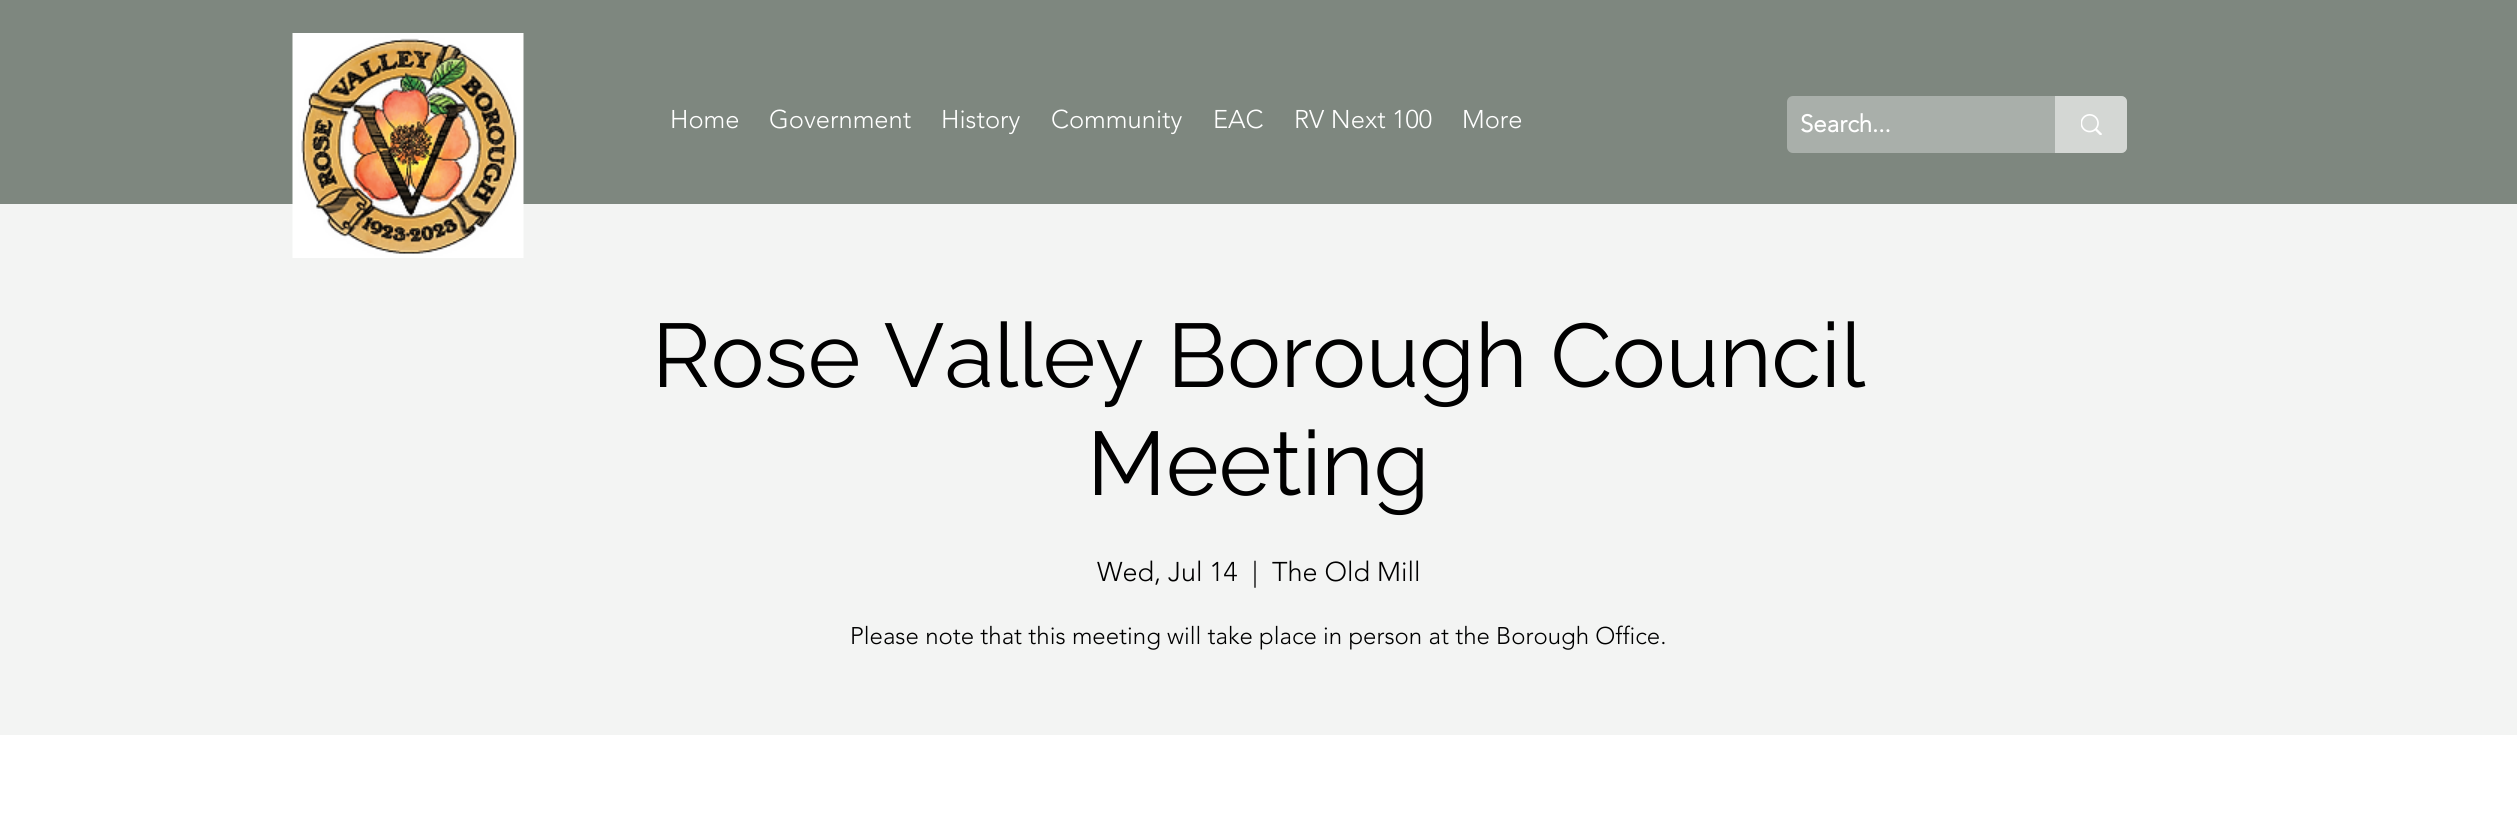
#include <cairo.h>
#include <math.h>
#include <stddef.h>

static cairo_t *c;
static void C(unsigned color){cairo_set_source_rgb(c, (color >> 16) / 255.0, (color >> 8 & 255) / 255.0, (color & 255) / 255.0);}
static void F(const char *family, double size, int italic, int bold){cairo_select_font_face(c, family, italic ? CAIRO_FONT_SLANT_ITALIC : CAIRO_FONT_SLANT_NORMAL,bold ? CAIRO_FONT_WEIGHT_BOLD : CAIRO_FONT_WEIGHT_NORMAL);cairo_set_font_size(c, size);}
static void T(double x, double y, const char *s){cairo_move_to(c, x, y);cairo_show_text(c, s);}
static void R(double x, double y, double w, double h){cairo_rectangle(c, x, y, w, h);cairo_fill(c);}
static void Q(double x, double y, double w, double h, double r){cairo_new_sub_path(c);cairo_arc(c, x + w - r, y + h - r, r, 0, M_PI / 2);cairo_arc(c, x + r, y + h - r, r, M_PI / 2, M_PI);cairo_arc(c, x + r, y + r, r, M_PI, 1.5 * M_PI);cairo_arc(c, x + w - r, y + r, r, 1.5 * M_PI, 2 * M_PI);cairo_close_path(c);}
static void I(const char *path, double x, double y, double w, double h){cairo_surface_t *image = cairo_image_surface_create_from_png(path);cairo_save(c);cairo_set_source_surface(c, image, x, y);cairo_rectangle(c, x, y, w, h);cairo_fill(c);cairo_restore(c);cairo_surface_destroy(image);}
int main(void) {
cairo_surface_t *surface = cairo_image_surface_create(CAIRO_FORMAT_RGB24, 2517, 840);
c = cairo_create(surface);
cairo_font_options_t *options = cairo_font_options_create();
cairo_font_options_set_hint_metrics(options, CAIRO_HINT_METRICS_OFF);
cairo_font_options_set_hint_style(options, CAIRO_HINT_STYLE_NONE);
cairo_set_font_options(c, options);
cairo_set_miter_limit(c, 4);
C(0xffffff);
cairo_paint(c);
C(0x7e877f);
R(0,0,2517,204);
C(0xf3f4f3);
R(0,204,2517,531);
I("1.png",292,33,232,225);
F("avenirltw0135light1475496 Light",25.5,0,0);
C(0xffffff);
T(670,128,"Home");
T(769,128,"Government");
T(941,128,"History");
T(1051,128,"Community");
T(1213,128,"EAC");
T(1294,128,"RV Next 100");
T(1462,128,"More");
C(0xa9afaa);
Q(1787,96,340,57,6);
cairo_fill(c);
F("avenirltw0135light1475496",24,0,1);
C(0xffffff);
T(1800,132,"Search...");
C(0xd4d7d4);
cairo_new_path(c);
cairo_move_to(c,2055,96);
cairo_line_to(c,2121,96);
cairo_curve_to(c,2124.5,96,2127,98.5,2127,102);
cairo_line_to(c,2127,147);
cairo_curve_to(c,2127,150.5,2124.5,153,2121,153);
cairo_line_to(c,2055,153);
cairo_close_path(c);
cairo_fill(c);
I("2.png",2081,114,21,21);
F("Raleway",90,0,0);
C(0x000000);
T(652,387,"Rose Valley Borough Council");
T(1087,495,"Meeting");
F("avenirltw0135light1475496 Light",27,0,0);
T(1097,581,"Wed, Jul 14");
T(1252,581,"|");
T(1272,581,"The Old Mill");
F("avenirltw0135light1475496 Light",24,0,0);
T(850,644,"Please note that this meeting will take place in person at the Borough Office.");
cairo_surface_write_to_png(surface, "o.png");
cairo_font_options_destroy(options);
cairo_destroy(c);
cairo_surface_destroy(surface);
return 0;
}
